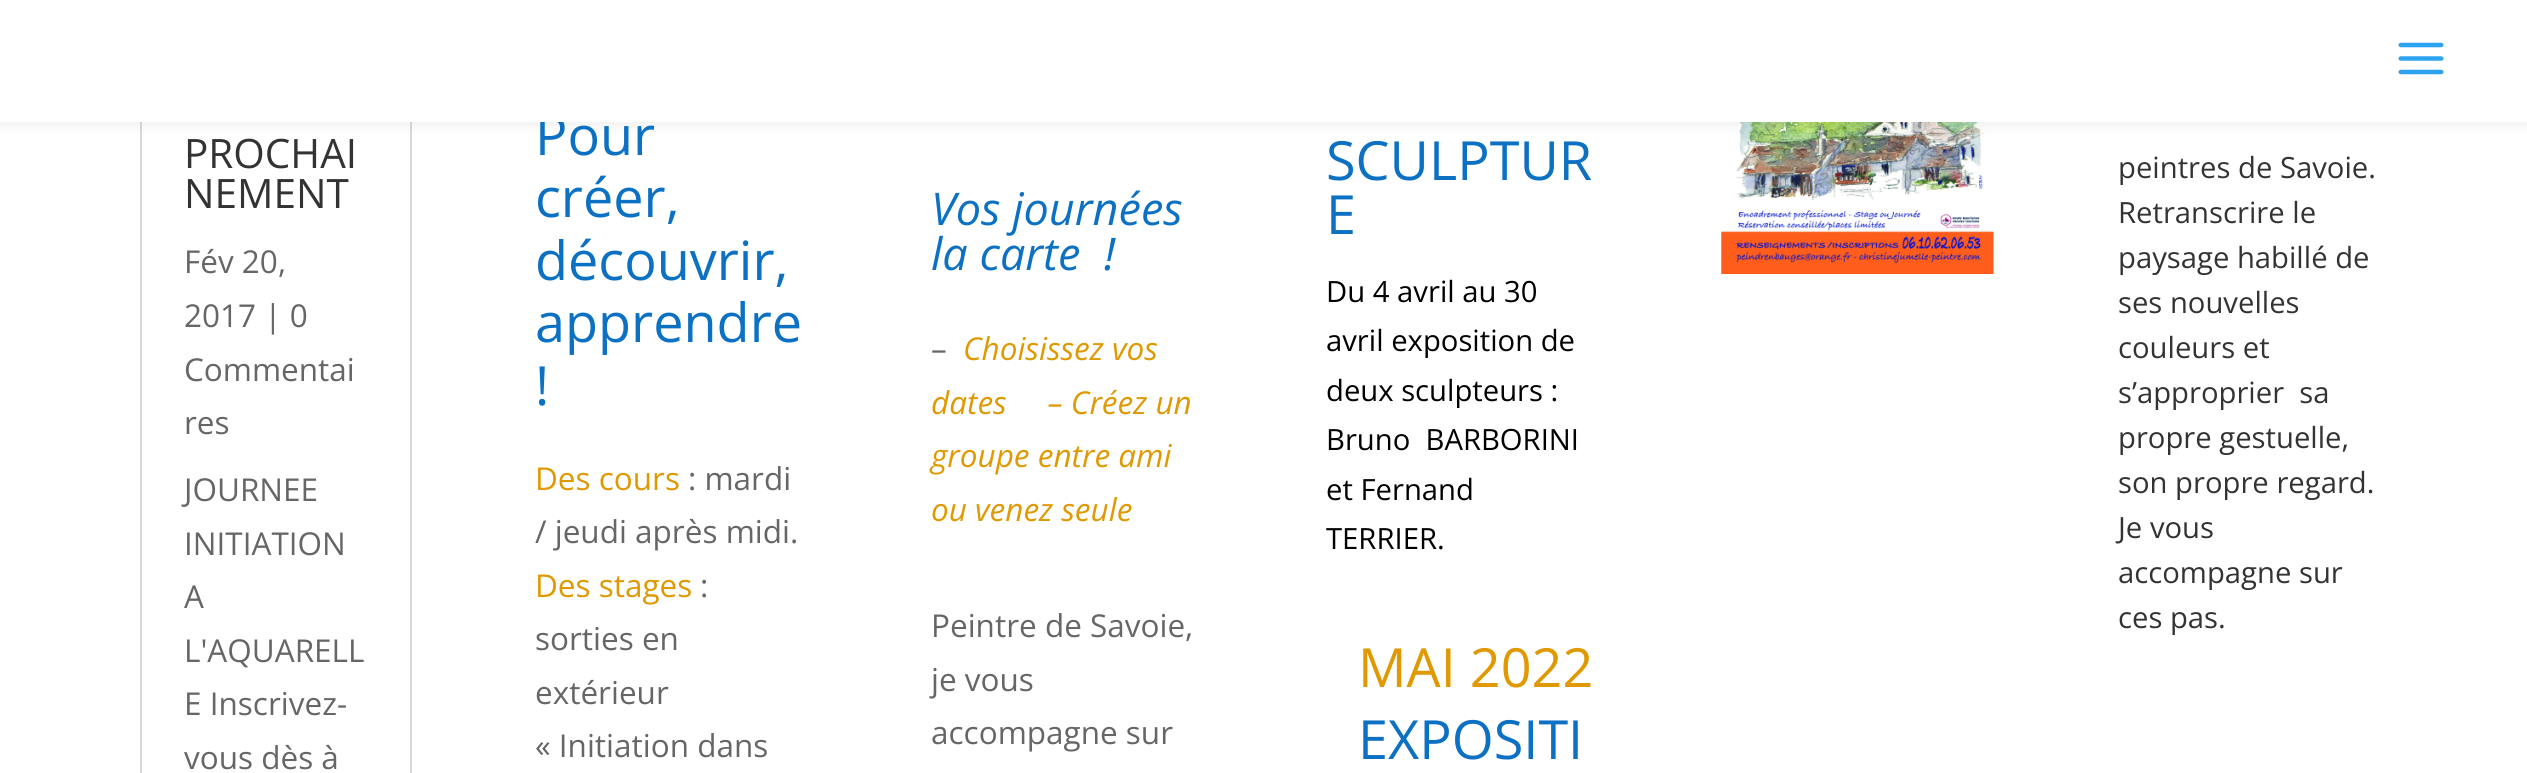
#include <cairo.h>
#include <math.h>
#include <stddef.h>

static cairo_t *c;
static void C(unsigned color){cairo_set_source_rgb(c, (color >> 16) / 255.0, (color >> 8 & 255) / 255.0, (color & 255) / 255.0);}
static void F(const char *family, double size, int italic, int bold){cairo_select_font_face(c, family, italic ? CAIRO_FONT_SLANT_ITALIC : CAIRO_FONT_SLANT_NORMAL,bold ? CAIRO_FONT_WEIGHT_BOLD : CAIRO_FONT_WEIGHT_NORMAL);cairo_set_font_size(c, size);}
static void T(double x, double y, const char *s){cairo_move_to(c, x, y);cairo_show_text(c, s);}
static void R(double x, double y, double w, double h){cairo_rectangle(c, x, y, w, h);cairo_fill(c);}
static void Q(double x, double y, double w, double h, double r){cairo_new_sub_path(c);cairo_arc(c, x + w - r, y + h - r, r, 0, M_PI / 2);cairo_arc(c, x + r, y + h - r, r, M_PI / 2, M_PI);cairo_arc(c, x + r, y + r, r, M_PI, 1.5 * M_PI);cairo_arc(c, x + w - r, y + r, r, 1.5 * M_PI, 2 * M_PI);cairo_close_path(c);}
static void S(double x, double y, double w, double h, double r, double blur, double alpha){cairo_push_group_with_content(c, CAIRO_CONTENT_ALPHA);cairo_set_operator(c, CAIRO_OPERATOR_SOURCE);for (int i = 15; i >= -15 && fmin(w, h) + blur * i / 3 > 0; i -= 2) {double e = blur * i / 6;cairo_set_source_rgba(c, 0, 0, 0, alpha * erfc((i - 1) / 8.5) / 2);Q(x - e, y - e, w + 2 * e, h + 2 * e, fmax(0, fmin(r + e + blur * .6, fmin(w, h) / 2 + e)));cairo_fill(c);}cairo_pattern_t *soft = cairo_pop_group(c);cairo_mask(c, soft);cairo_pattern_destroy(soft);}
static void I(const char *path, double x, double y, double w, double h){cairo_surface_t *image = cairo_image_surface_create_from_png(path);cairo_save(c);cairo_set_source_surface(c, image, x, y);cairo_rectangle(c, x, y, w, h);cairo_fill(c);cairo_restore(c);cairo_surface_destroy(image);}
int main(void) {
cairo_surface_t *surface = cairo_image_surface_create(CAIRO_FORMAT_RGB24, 2527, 773);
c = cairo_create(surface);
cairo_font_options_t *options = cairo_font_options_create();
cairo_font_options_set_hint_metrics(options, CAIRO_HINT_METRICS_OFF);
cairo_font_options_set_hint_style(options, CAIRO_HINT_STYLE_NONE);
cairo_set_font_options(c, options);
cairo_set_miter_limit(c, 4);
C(0xffffff);
cairo_paint(c);
cairo_rectangle(c,141,-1,270,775);
C(0xd8d8d8);
cairo_stroke(c);
I("2.png",1721,122,273,152);
C(0x000000);
S(0,0,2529,122,0,8,.1);
F("Open Sans",54,0,0);
C(0x0c71c3);
T(535,155,"Pour");
C(0xffffff);
R(0,0,2527,122);
I("1.png",2398,42,46,33);
F("Open Sans",40.5,0,0);
C(0x333333);
T(184,168,"PROCHAI");
T(184,208,"NEMENT");
F("Open Sans",31.5,0,0);
C(0x666666);
T(184,273,"Fév 20,");
T(184,327,"2017 | 0");
T(184,381,"Commentai");
T(184,434,"res");
T(184,501,"JOURNEE");
T(184,555,"INITIATION");
T(184,608,"A");
T(184,662,"L'AQUARELL");
T(184,715,"E Inscrivez-");
T(184,769,"vous dès à");
F("Open Sans",54,0,0);
C(0x0c71c3);
T(535,217,"créer,");
T(535,280,"découvrir,");
T(535,342,"apprendre");
T(535,405,"!");
F("Open Sans",31.5,0,0);
C(0xe09900);
T(535,490,"Des cours");
C(0x666666);
T(688,490,": mardi");
T(535,543,"/ jeudi après midi.");
C(0xe09900);
T(535,597,"Des stages");
C(0x666666);
T(700,597,":");
T(535,650,"sorties en");
T(535,704,"extérieur");
T(535,757,"« Initiation dans");
F("Open Sans",45,1,0);
C(0x0c71c3);
T(931,225,"Vos journées");
T(931,270,"la carte  !");
F("Open Sans",31.5,0,0);
C(0x666666);
T(931,360,"–");
F("Open Sans",31.5,1,0);
C(0xe09900);
T(963,360,"Choisissez vos");
T(931,414,"dates     – Créez un");
T(931,467,"groupe entre ami");
T(931,521,"ou venez seule");
F("Open Sans",31.5,0,0);
C(0x666666);
T(931,637,"Peintre de Savoie,");
T(931,691,"je vous");
T(931,744,"accompagne sur");
F("Open Sans",54,0,0);
C(0x0c71c3);
T(1326,180,"SCULPTUR");
T(1326,234,"E");
F("Open Sans",29.25,0,0);
C(0x000000);
T(1326,302,"Du 4 avril au 30");
T(1326,351,"avril exposition de");
T(1326,401,"deux sculpteurs :");
T(1326,450,"Bruno  BARBORINI");
T(1326,500,"et Fernand");
T(1326,549,"TERRIER.");
F("Open Sans",54,0,0);
C(0xe09900);
T(1358,687,"MAI 2022");
C(0x0c71c3);
T(1358,759,"EXPOSITI");
F("Open Sans",29.25,0,0);
C(0x333333);
T(2118,178,"peintres de Savoie.");
T(2118,223,"Retranscrire le");
T(2118,268,"paysage habillé de");
T(2118,313,"ses nouvelles");
T(2118,358,"couleurs et");
T(2118,403,"s’approprier  sa");
T(2118,448,"propre gestuelle,");
T(2118,493,"son propre regard.");
T(2118,538,"Je vous");
T(2118,583,"accompagne sur");
T(2118,628,"ces pas.");
cairo_surface_write_to_png(surface, "o.png");
cairo_font_options_destroy(options);
cairo_destroy(c);
cairo_surface_destroy(surface);
return 0;
}
